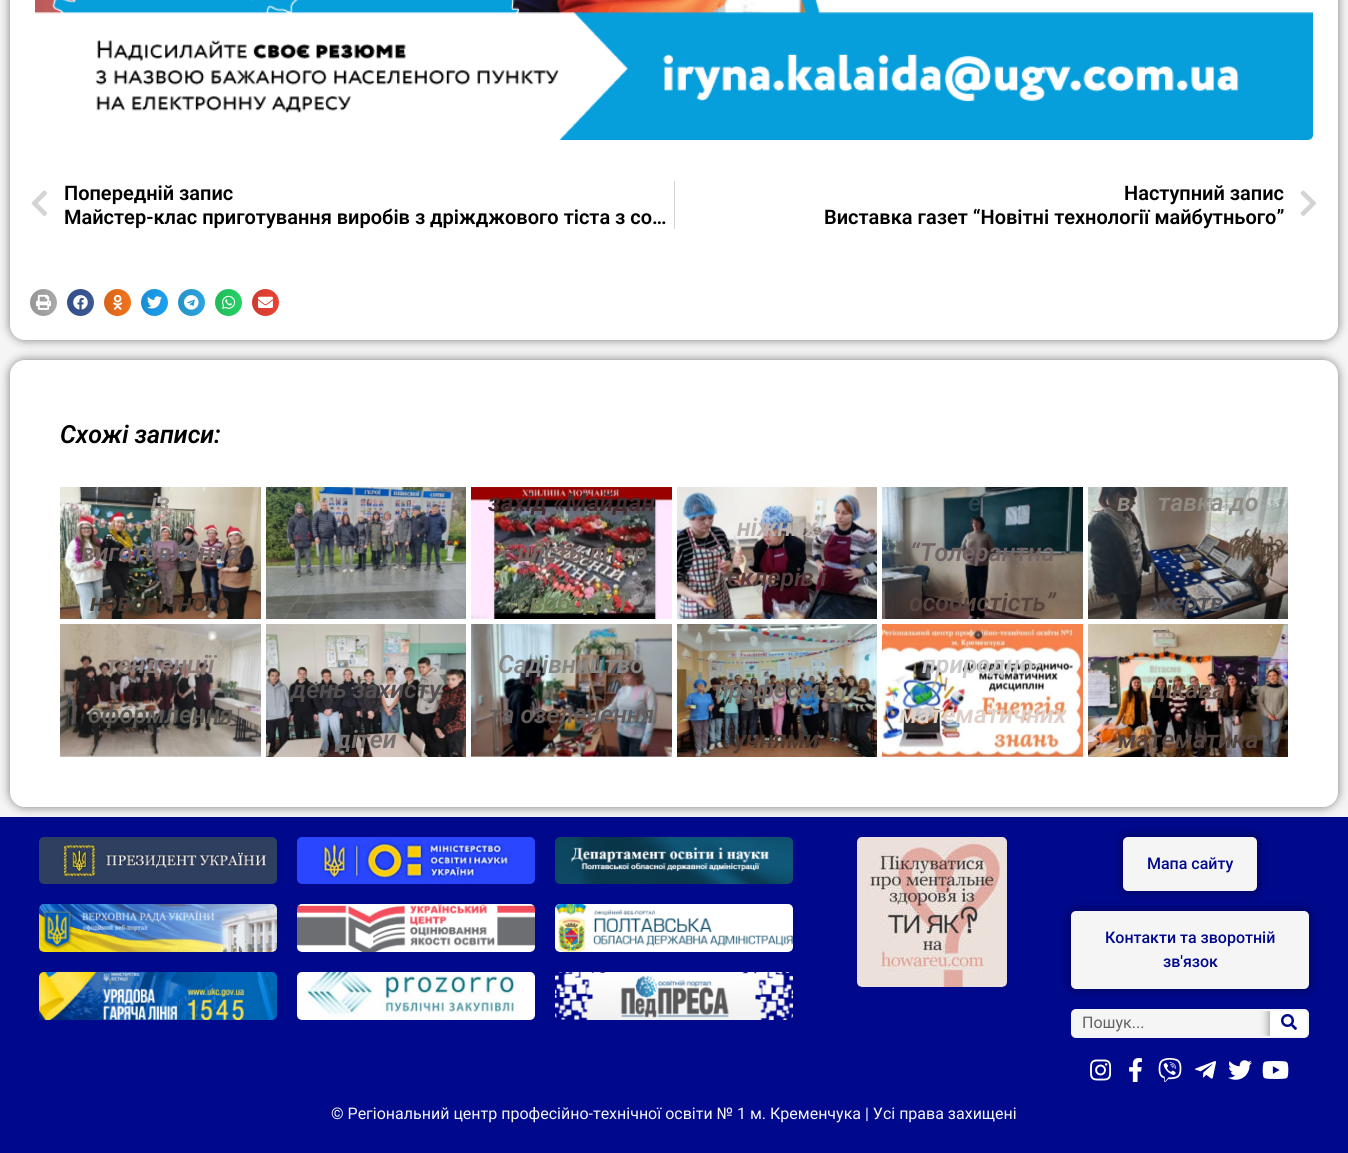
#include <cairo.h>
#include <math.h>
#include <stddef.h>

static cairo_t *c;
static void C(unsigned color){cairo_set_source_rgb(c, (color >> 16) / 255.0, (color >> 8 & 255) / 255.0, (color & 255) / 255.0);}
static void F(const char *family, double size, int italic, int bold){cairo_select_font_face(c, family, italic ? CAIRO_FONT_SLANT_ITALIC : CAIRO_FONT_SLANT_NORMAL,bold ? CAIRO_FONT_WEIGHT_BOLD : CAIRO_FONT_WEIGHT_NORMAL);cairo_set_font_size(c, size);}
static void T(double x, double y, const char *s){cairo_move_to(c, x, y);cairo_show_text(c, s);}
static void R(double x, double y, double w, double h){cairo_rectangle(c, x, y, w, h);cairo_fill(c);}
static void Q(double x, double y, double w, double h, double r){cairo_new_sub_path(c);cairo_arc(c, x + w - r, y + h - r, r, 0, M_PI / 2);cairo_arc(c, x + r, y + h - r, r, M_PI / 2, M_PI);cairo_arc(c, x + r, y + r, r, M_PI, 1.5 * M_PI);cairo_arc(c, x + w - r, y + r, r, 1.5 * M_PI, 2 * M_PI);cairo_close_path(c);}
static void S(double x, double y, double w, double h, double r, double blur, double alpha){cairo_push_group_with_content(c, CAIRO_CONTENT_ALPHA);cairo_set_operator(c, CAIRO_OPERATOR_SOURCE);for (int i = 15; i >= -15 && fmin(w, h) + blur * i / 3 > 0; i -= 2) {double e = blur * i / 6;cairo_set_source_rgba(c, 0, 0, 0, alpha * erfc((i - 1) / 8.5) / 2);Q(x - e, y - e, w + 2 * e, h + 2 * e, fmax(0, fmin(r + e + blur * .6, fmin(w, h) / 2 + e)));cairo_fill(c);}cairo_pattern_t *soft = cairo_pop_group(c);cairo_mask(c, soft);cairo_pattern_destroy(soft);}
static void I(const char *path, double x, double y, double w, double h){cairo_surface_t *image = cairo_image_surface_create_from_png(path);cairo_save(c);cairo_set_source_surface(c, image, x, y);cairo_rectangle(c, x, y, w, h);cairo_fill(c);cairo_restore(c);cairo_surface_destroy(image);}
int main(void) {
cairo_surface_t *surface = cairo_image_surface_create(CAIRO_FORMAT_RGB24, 1348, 1153);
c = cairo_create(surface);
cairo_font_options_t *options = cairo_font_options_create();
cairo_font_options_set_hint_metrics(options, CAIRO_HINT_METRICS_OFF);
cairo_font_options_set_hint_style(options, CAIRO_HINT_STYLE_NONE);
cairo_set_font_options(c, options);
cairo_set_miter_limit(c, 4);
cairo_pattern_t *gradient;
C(0xf5f5f5);
cairo_paint(c);
C(0x000000);
S(10,-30,1328,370,15,5,.5);
C(0xffffff);
Q(10,-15,1328,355,15);
cairo_fill(c);
I("1.png",35,0,1278,140);
I("2.png",31,190,16,26);
F("Roboto SemiBold",20,0,0);
C(0x000000);
T(64,200,"Попередній запис");
T(64,224,"Майстер-клас приготування виробів з дріжджового тіста з со…");
C(0xd4d4d4);
R(674,181,1,48);
C(0x000000);
T(1124,200,"Наступний запис");
T(824,224,"Виставка газет “Новітні технології майбутнього”");
I("3.png",1300,190,17,26);
C(0xaaaaaa);
cairo_arc(c,43.5,302.5,13.5,0,2 * M_PI);
cairo_fill(c);
gradient = cairo_pattern_create_linear(30,303,57,303);
cairo_pattern_add_color_stop_rgba(gradient,0,0,0,0,.12);
cairo_pattern_add_color_stop_rgba(gradient,1,0,0,0,0);
cairo_set_source(c,gradient);
cairo_pattern_destroy(gradient);
cairo_arc(c,43.5,302.5,13.5,0,2 * M_PI);
cairo_fill(c);
I("4.png",36,294,15,16);
C(0x3b5998);
cairo_arc(c,80.5,302.5,13.5,0,2 * M_PI);
cairo_fill(c);
gradient = cairo_pattern_create_linear(67,303,94,303);
cairo_pattern_add_color_stop_rgba(gradient,0,0,0,0,.12);
cairo_pattern_add_color_stop_rgba(gradient,1,0,0,0,0);
cairo_set_source(c,gradient);
cairo_pattern_destroy(gradient);
cairo_arc(c,80.5,302.5,13.5,0,2 * M_PI);
cairo_fill(c);
I("5.png",73,295,15,15);
C(0xf4731c);
cairo_arc(c,117.5,302.5,13.5,0,2 * M_PI);
cairo_fill(c);
gradient = cairo_pattern_create_linear(104,303,131,303);
cairo_pattern_add_color_stop_rgba(gradient,0,0,0,0,.12);
cairo_pattern_add_color_stop_rgba(gradient,1,0,0,0,0);
cairo_set_source(c,gradient);
cairo_pattern_destroy(gradient);
cairo_arc(c,117.5,302.5,13.5,0,2 * M_PI);
cairo_fill(c);
I("6.png",113,294,10,16);
C(0x1da1f2);
cairo_arc(c,154.5,302.5,13.5,0,2 * M_PI);
cairo_fill(c);
gradient = cairo_pattern_create_linear(141,303,168,303);
cairo_pattern_add_color_stop_rgba(gradient,0,0,0,0,.12);
cairo_pattern_add_color_stop_rgba(gradient,1,0,0,0,0);
cairo_set_source(c,gradient);
cairo_pattern_destroy(gradient);
cairo_arc(c,154.5,302.5,13.5,0,2 * M_PI);
cairo_fill(c);
I("7.png",147,296,15,13);
C(0x2ca5e0);
cairo_arc(c,191.5,302.5,13.5,0,2 * M_PI);
cairo_fill(c);
gradient = cairo_pattern_create_linear(178,303,205,303);
cairo_pattern_add_color_stop_rgba(gradient,0,0,0,0,.12);
cairo_pattern_add_color_stop_rgba(gradient,1,0,0,0,0);
cairo_set_source(c,gradient);
cairo_pattern_destroy(gradient);
cairo_arc(c,191.5,302.5,13.5,0,2 * M_PI);
cairo_fill(c);
I("8.png",184,295,15,15);
C(0x25d366);
cairo_arc(c,228.5,302.5,13.5,0,2 * M_PI);
cairo_fill(c);
gradient = cairo_pattern_create_linear(215,303,242,303);
cairo_pattern_add_color_stop_rgba(gradient,0,0,0,0,.12);
cairo_pattern_add_color_stop_rgba(gradient,1,0,0,0,0);
cairo_set_source(c,gradient);
cairo_pattern_destroy(gradient);
cairo_arc(c,228.5,302.5,13.5,0,2 * M_PI);
cairo_fill(c);
I("9.png",222,295,14,14);
C(0xea4335);
cairo_arc(c,265.5,302.5,13.5,0,2 * M_PI);
cairo_fill(c);
gradient = cairo_pattern_create_linear(252,303,279,303);
cairo_pattern_add_color_stop_rgba(gradient,0,0,0,0,.12);
cairo_pattern_add_color_stop_rgba(gradient,1,0,0,0,0);
cairo_set_source(c,gradient);
cairo_pattern_destroy(gradient);
cairo_arc(c,265.5,302.5,13.5,0,2 * M_PI);
cairo_fill(c);
I("10.png",258,296,15,12);
C(0x000000);
S(10,360,1328,447,15,5,.5);
C(0xffffff);
Q(10,360,1328,447,15);
cairo_fill(c);
F("Roboto SemiBold",25,1,0);
C(0x000000);
T(60,443,"Схожі записи:");
I("11.png",60,487,201,132);
C(0x9b968e);
T(151,511,"із");
C(0x726464);
T(81,561,"виготовлення");
C(0x483c33);
T(90,611,"новорічного");
I("12.png",266,487,200,132);
I("13.png",471,487,201,132);
C(0x472b2e);
T(488,511,"захід «Майдан");
C(0x786764);
T(496,561,"– шість літер");
C(0x777c60);
T(517,611,"свободи і");
I("14.png",677,487,200,132);
C(0xb8b1b1);
T(737,536,"ніжних");
C(0x573f3f);
T(727,586,"еклерів і");
I("15.png",882,487,201,132);
C(0x29434b);
T(968,511,"е");
C(0x726464);
T(910,561,"“Толерантна");
C(0x574640);
T(909,611,"особистість”");
I("16.png",1088,487,200,132);
C(0x8f8b85);
T(1117,511,"в");
T(1158,511,"тавка до");
C(0x525157);
T(1151,611,"жертв");
C(0xe6e6e6);
R(60,756,201,1);
I("17.png",60,624,201,133);
C(0x8a7d79);
T(106,673,"тенденції");
C(0x5b5753);
T(88,723,"оформлення");
I("18.png",266,624,200,133);
C(0x544f51);
T(291,698,"день захисту");
C(0x76706f);
T(336,748,"дітей");
C(0xe6e6e6);
R(471,756,201,1);
I("19.png",471,624,201,133);
C(0x878785);
T(498,673,"Садівництво");
C(0x635c5a);
T(489,723,"та озеленення");
I("20.png",677,624,200,133);
C(0x6d6c6b);
T(715,698,"професій з");
C(0x4f3a30);
T(734,748,"учнями");
C(0xe6e6e6);
R(882,756,201,1);
I("21.png",882,624,201,133);
C(0xcbcaca);
T(922,673,"природно-");
C(0xdfd0c8);
T(899,723,"математичних");
I("22.png",1088,624,200,133);
C(0x68554a);
T(1151,698,"цікава");
C(0x574640);
T(1118,748,"математика");
C(0x00088c);
R(0,817,1348,336);
I("23.png",39,837,238,47);
I("24.png",39,904,238,48);
I("25.png",39,972,238,48);
I("26.png",297,837,238,47);
I("27.png",297,904,238,48);
I("28.png",297,972,238,48);
I("29.png",555,837,238,47);
I("30.png",555,904,238,48);
I("31.png",555,972,238,48);
I("32.png",857,837,150,150);
C(0x000000);
S(1123,837,134,54,5,5,.5);
C(0xf5f5f5);
Q(1123,837,134,54,5);
cairo_fill(c);
F("Roboto Medium",16,0,0);
C(0x00088c);
T(1147,869,"Мапа сайту");
C(0x000000);
S(1071,911,238,78,5,5,.5);
C(0xf5f5f5);
Q(1071,911,238,78,5);
cairo_fill(c);
C(0x00088c);
T(1105,943,"Контакти та зворотній");
T(1163,967,"зв'язок");
C(0xf5f5f5);
Q(1071,1009,238,29,5);
cairo_fill(c);
F("Roboto",16,0,0);
C(0x626262);
T(1082,1028,"Пошук...");
cairo_save(c);
cairo_rectangle(c,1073,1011,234,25);
cairo_clip(c);
C(0x000000);
S(1270,1011,37,25,0,5,.5);
cairo_restore(c);
C(0xffffff);
R(1270,1011,37,25);
I("33.png",1281,1014,16,16);
I("34.png",1090,1059,22,22);
I("35.png",1129,1058,13,24);
I("36.png",1158,1058,24,24);
I("37.png",1195,1061,21,18);
I("38.png",1228,1060,24,20);
I("39.png",1262,1061,27,18);
C(0xf5f5f5);
T(331,1119,"© Регіональний центр професійно-технічної освіти № 1 м. Кременчука | Усі права захищені");
cairo_surface_write_to_png(surface, "o.png");
cairo_font_options_destroy(options);
cairo_destroy(c);
cairo_surface_destroy(surface);
return 0;
}
